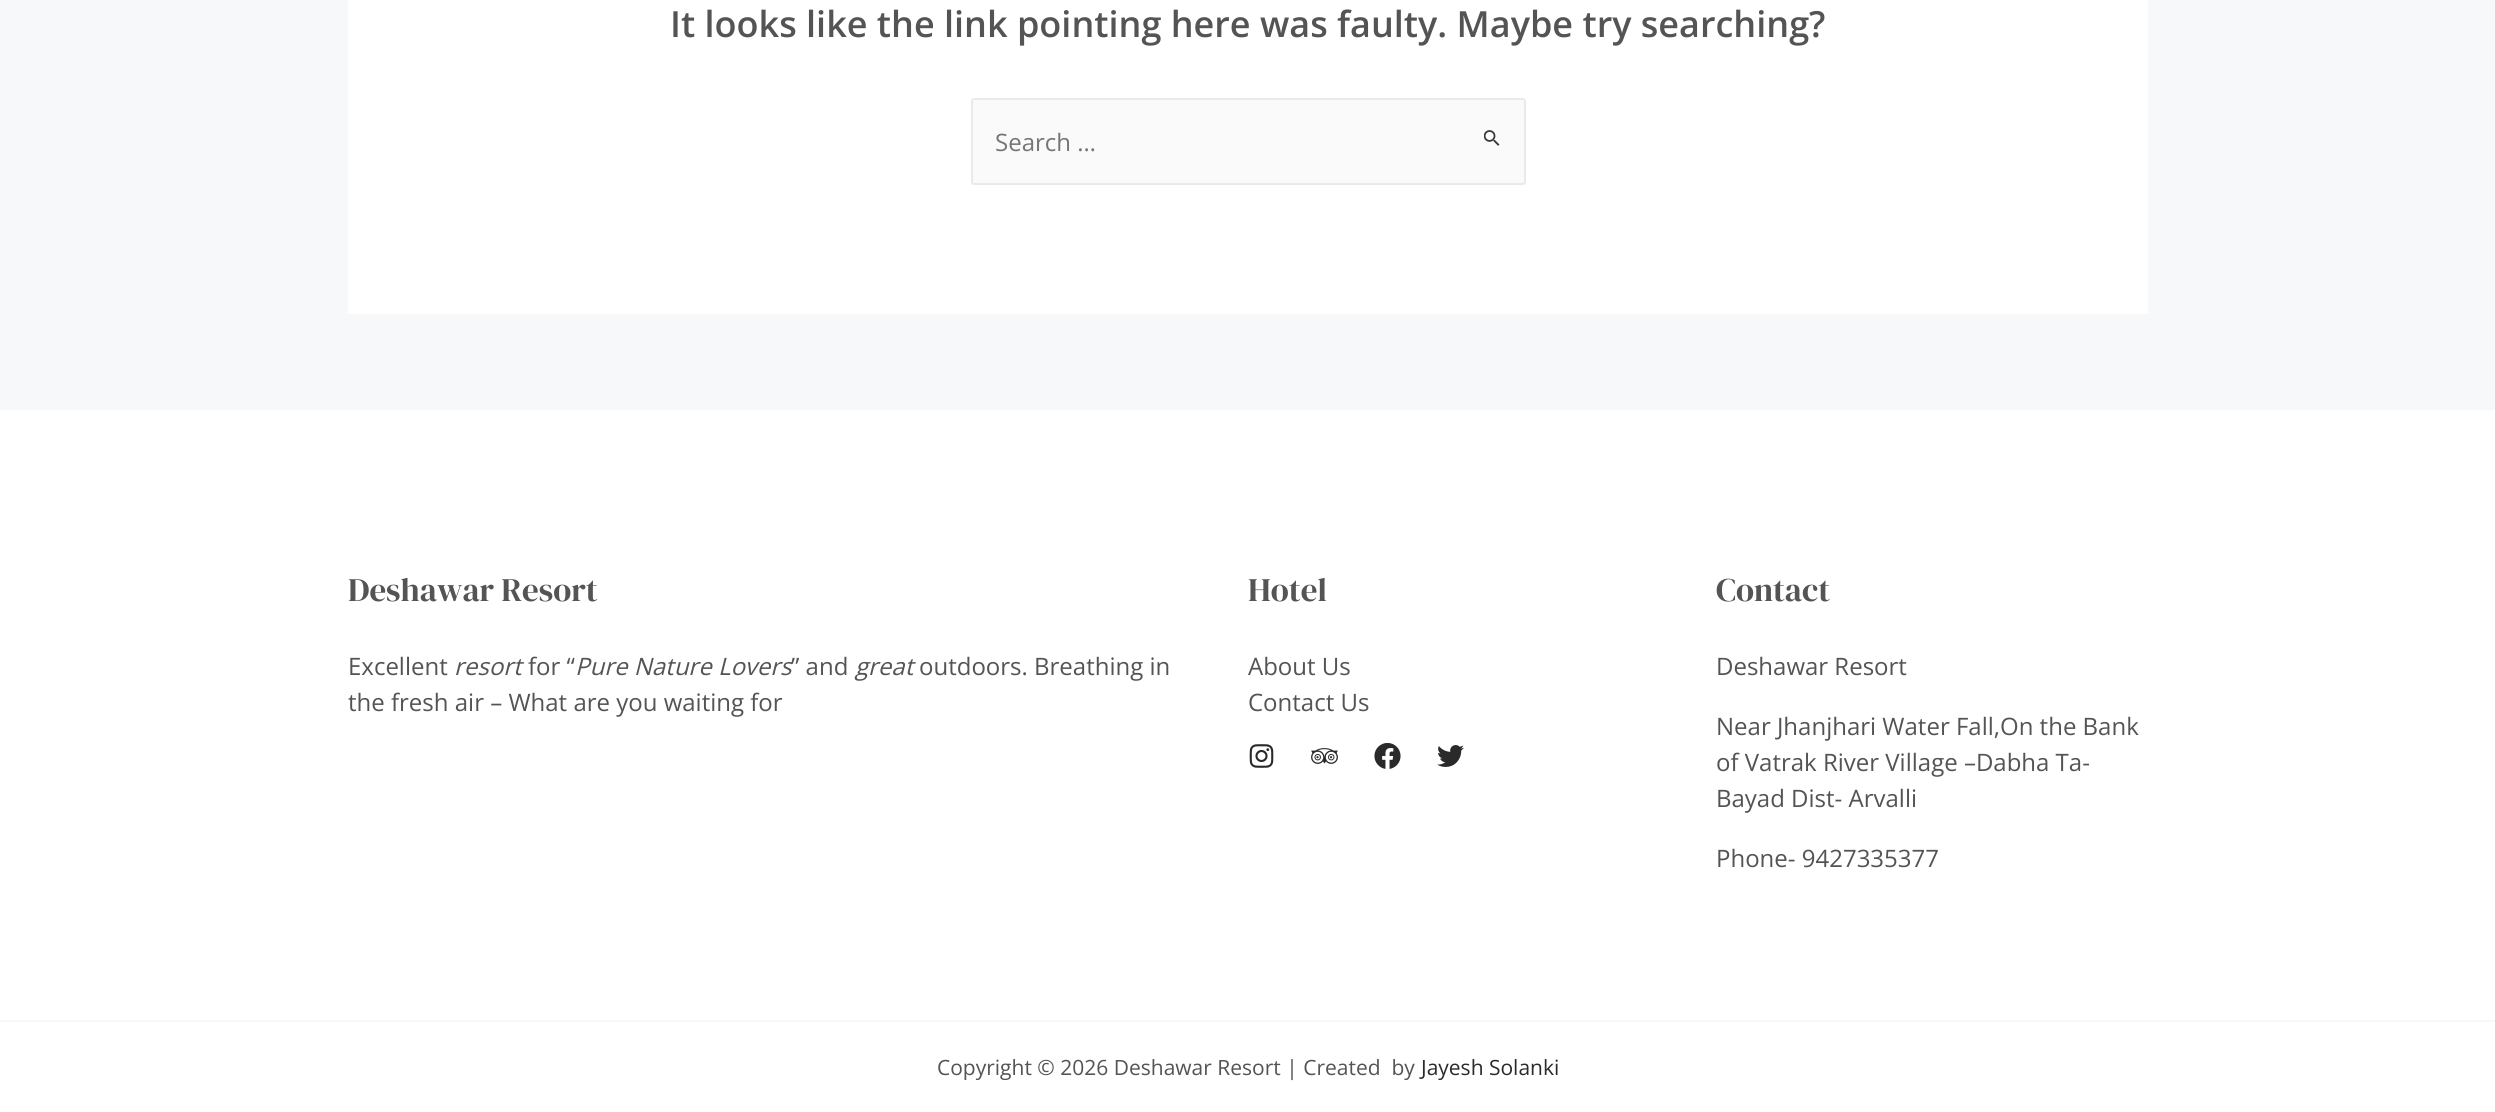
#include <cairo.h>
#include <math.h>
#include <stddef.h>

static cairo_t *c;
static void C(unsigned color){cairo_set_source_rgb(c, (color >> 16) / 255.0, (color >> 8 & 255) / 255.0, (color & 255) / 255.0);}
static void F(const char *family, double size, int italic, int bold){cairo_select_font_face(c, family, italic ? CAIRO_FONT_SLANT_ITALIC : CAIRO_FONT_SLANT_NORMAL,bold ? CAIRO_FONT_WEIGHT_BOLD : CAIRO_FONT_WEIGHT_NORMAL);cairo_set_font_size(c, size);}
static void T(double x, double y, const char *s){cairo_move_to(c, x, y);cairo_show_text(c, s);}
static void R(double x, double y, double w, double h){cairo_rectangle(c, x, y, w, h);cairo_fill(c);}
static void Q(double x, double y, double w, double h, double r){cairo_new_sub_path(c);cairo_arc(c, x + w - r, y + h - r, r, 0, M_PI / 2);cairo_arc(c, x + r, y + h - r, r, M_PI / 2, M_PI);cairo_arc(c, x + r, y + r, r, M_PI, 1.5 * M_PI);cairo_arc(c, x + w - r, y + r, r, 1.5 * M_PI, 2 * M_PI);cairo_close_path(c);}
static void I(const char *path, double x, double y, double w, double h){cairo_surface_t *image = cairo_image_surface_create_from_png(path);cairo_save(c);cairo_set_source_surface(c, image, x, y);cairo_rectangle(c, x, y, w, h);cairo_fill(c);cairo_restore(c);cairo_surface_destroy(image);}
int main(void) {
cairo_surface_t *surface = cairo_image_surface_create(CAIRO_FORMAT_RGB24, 2495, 1112);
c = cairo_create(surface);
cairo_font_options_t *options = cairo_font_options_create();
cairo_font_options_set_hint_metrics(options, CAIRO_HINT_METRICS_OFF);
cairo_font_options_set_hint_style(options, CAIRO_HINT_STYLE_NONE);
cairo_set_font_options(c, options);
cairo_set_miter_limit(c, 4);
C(0xf7f8f9);
cairo_paint(c);
C(0xffffff);
R(348,0,1800,314);
F("Open Sans SemiBold",36,0,0);
C(0x545454);
T(670,37,"It looks like the link pointing here was faulty. Maybe try searching?");
C(0xfafafa);
Q(972,99,553,85,2);
cairo_fill_preserve(c);
C(0xeaeaea);
cairo_stroke(c);
F("Open Sans",24,0,0);
C(0x757575);
T(995,151,"Search …");
I("1.png",1484,130,16,16);
C(0xffffff);
R(0,410,2495,702);
F("DM Serif Display",33,0,0);
C(0x545454);
T(348,601,"Deshawar Resort");
F("Open Sans",24,0,0);
T(348,675,"Excellent");
F("Open Sans",24,1,0);
T(454,675,"resort");
F("Open Sans",24,0,0);
T(528,675,"for “");
F("Open Sans",24,1,0);
T(575,675,"Pure Nature Lovers");
F("Open Sans",24,0,0);
T(791,675,"” and");
F("Open Sans",24,1,0);
T(855,675,"great");
F("Open Sans",24,0,0);
T(919,675,"outdoors. Breathing in");
T(348,711,"the fresh air – What are you waiting for");
F("DM Serif Display",33,0,0);
T(1248,601,"Hotel");
F("Open Sans",24,0,0);
T(1248,675,"About Us");
T(1248,711,"Contact Us");
I("2.png",1249,744,25,24);
I("3.png",1311,748,27,16);
I("4.png",1374,743,27,26);
I("5.png",1437,745,27,22);
F("DM Serif Display",33,0,0);
T(1716,601,"Contact");
F("Open Sans",24,0,0);
T(1716,675,"Deshawar Resort");
T(1716,735,"Near Jhanjhari Water Fall,On the Bank");
T(1716,771,"of Vatrak River Village –Dabha Ta-");
T(1716,807,"Bayad Dist- Arvalli");
T(1716,867,"Phone- 9427335377");
C(0xf7f8f9);
R(0,1020,2495,2);
F("Open Sans",21,0,0);
C(0x545454);
T(937,1075,"Copyright © 2026 Deshawar Resort | Created  by");
C(0x2a2a2a);
T(1421,1075,"Jayesh Solanki");
cairo_surface_write_to_png(surface, "o.png");
cairo_font_options_destroy(options);
cairo_destroy(c);
cairo_surface_destroy(surface);
return 0;
}
